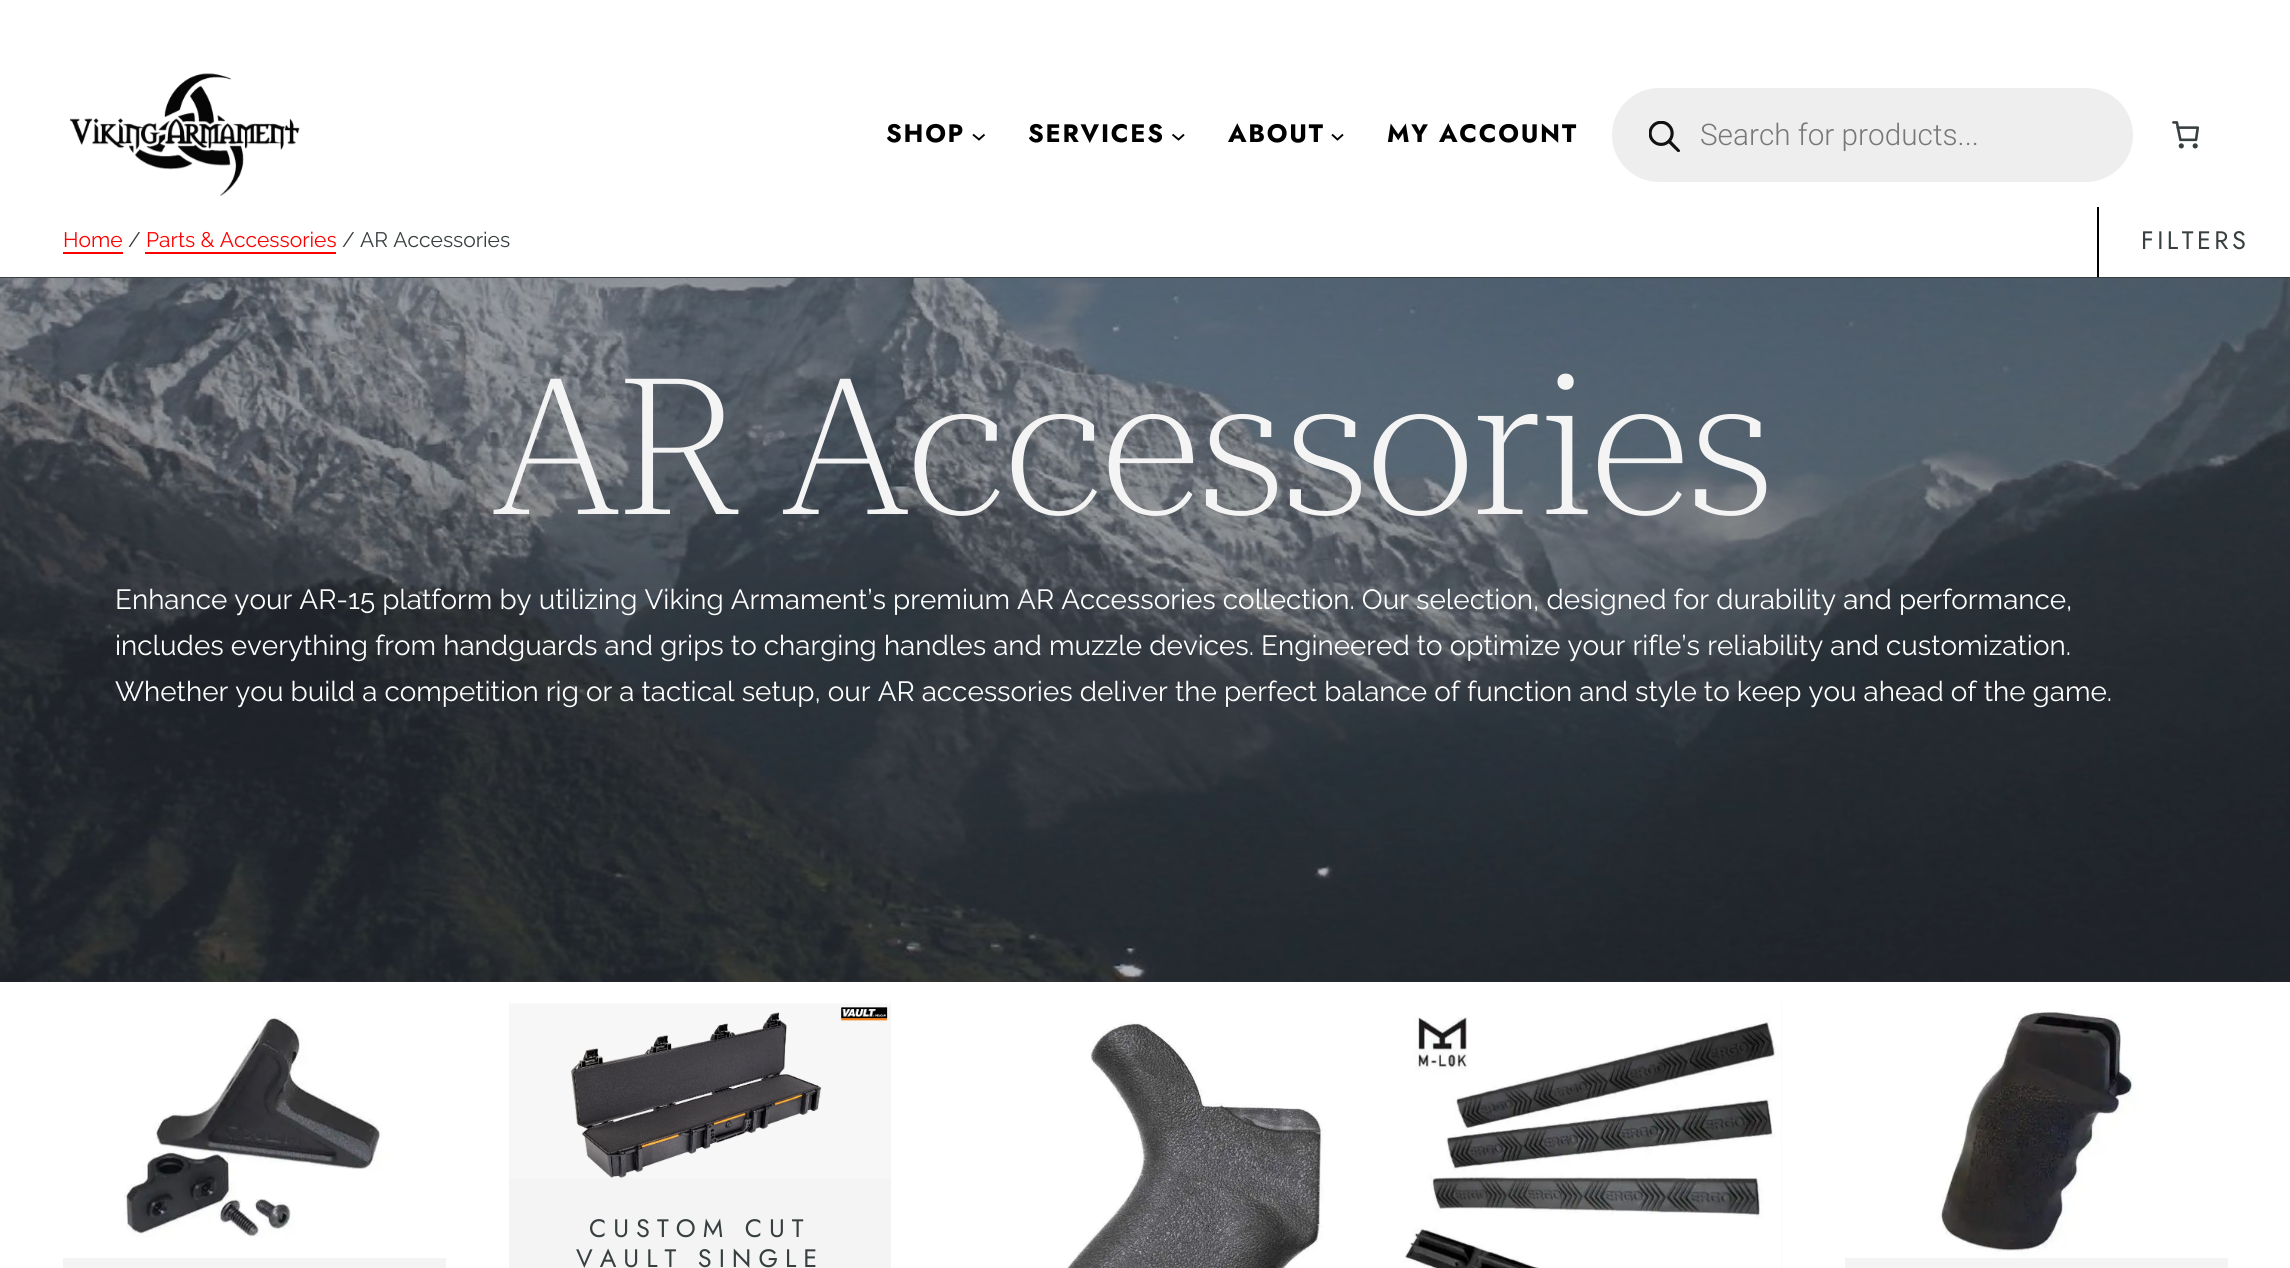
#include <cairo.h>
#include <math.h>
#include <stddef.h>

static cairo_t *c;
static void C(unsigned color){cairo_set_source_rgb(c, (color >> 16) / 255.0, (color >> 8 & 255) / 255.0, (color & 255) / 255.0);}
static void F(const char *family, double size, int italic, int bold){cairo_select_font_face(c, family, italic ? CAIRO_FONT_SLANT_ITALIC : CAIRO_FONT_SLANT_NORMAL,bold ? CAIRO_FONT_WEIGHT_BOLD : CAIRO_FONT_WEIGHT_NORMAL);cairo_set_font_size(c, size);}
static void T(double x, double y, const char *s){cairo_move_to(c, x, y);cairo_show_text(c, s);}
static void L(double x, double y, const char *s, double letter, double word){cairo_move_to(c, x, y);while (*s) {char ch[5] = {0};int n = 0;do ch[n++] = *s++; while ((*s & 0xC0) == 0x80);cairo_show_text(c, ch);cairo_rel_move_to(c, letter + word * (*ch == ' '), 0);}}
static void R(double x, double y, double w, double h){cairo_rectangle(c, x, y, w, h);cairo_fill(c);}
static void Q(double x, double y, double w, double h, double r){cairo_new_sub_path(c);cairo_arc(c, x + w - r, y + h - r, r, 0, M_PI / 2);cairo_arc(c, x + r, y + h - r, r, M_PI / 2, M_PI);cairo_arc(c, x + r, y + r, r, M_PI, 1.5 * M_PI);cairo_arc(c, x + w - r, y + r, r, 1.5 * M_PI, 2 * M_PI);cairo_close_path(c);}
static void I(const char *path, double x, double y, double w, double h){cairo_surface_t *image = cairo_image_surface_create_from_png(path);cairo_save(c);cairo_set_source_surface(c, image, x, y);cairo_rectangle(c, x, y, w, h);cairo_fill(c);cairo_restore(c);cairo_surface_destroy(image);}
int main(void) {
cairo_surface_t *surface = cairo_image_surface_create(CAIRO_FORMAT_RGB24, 2290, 1268);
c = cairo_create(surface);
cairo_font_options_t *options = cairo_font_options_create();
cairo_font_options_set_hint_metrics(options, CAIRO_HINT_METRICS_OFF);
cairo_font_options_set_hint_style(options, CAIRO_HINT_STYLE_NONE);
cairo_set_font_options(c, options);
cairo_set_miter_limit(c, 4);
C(0xffffff);
cairo_paint(c);
I("1.png",70,73,230,123);
F("Jost",25.25,0,1);
C(0x000000);
L(886,142,"SHOP",1.75,0);
cairo_new_path(c);
cairo_move_to(c,973,134.5);
cairo_line_to(c,979,139.5);
cairo_line_to(c,984.5,134.5);
cairo_set_line_width(c,1.9);
cairo_stroke(c);
L(1028,142,"SERVICES",1.75,0);
cairo_new_path(c);
cairo_move_to(c,1172.5,134.5);
cairo_line_to(c,1178.5,139.5);
cairo_line_to(c,1184,134.5);
cairo_stroke(c);
L(1228,142,"ABOUT",1.75,0);
cairo_new_path(c);
cairo_move_to(c,1332,134.5);
cairo_line_to(c,1337.5,139.5);
cairo_line_to(c,1343,134.5);
cairo_stroke(c);
L(1387,142,"MY ACCOUNT",1.75,0);
C(0xeeeeee);
Q(1612,88,521,94,47);
cairo_fill(c);
I("2.png",1649,121,31,31);
F("Roboto Light",29.75,0,0);
C(0x777777);
T(1700,145,"Search for products...");
I("3.png",2172,121,28,28);
C(0x383f40);
R(0,277,2290,1);
F("Raleway",21,0,0);
C(0xff0000);
T(63,247,"Home");
R(63,252,60,2);
C(0x383f40);
T(128,247,"/");
C(0xff0000);
T(146,247,"Parts & Accessories");
R(145,252,191,2);
C(0x383f40);
T(342,247,"/ AR Accessories");
C(0x000000);
R(2097,207,2,70);
F("Jost",25.25,0,0);
C(0x383f40);
L(2141,249,"FILTERS",3.5,0);
I("4.png",0,278,2290,704);
F("Roboto Serif ExtraLight",190.5,0,0);
C(0xf4f4f4);
L(492,514,"AR Accessories",-1.75,0);
F("Raleway",27.8,0,0);
C(0xffffff);
T(115,609,"Enhance your AR-15 platform by utilizing Viking Armament’s premium AR Accessories collection. Our selection, designed for durability and performance,");
T(115,655,"includes everything from handguards and grips to charging handles and muzzle devices. Engineered to optimize your rifle’s reliability and customization.");
T(115,701,"Whether you build a competition rig or a tactical setup, our AR accessories deliver the perfect balance of function and style to keep you ahead of the game.");
C(0xf4f4f4);
R(63,1258,383,10);
I("5.png",63,1003,383,255);
R(509,1003,382,265);
I("6.png",509,1003,382,175);
F("Jost",25.25,0,0);
C(0x383f40);
L(589,1237,"CUSTOM CUT",7,0);
L(576,1267,"VAULT SINGLE",7,0);
I("7.png",954,1003,383,265);
C(0xf4f4f4);
R(1781,1003,1,265);
I("8.png",1400,1003,382,265);
R(1845,1003,383,265);
I("9.png",1845,1003,383,255);
cairo_surface_write_to_png(surface, "o.png");
cairo_font_options_destroy(options);
cairo_destroy(c);
cairo_surface_destroy(surface);
return 0;
}
